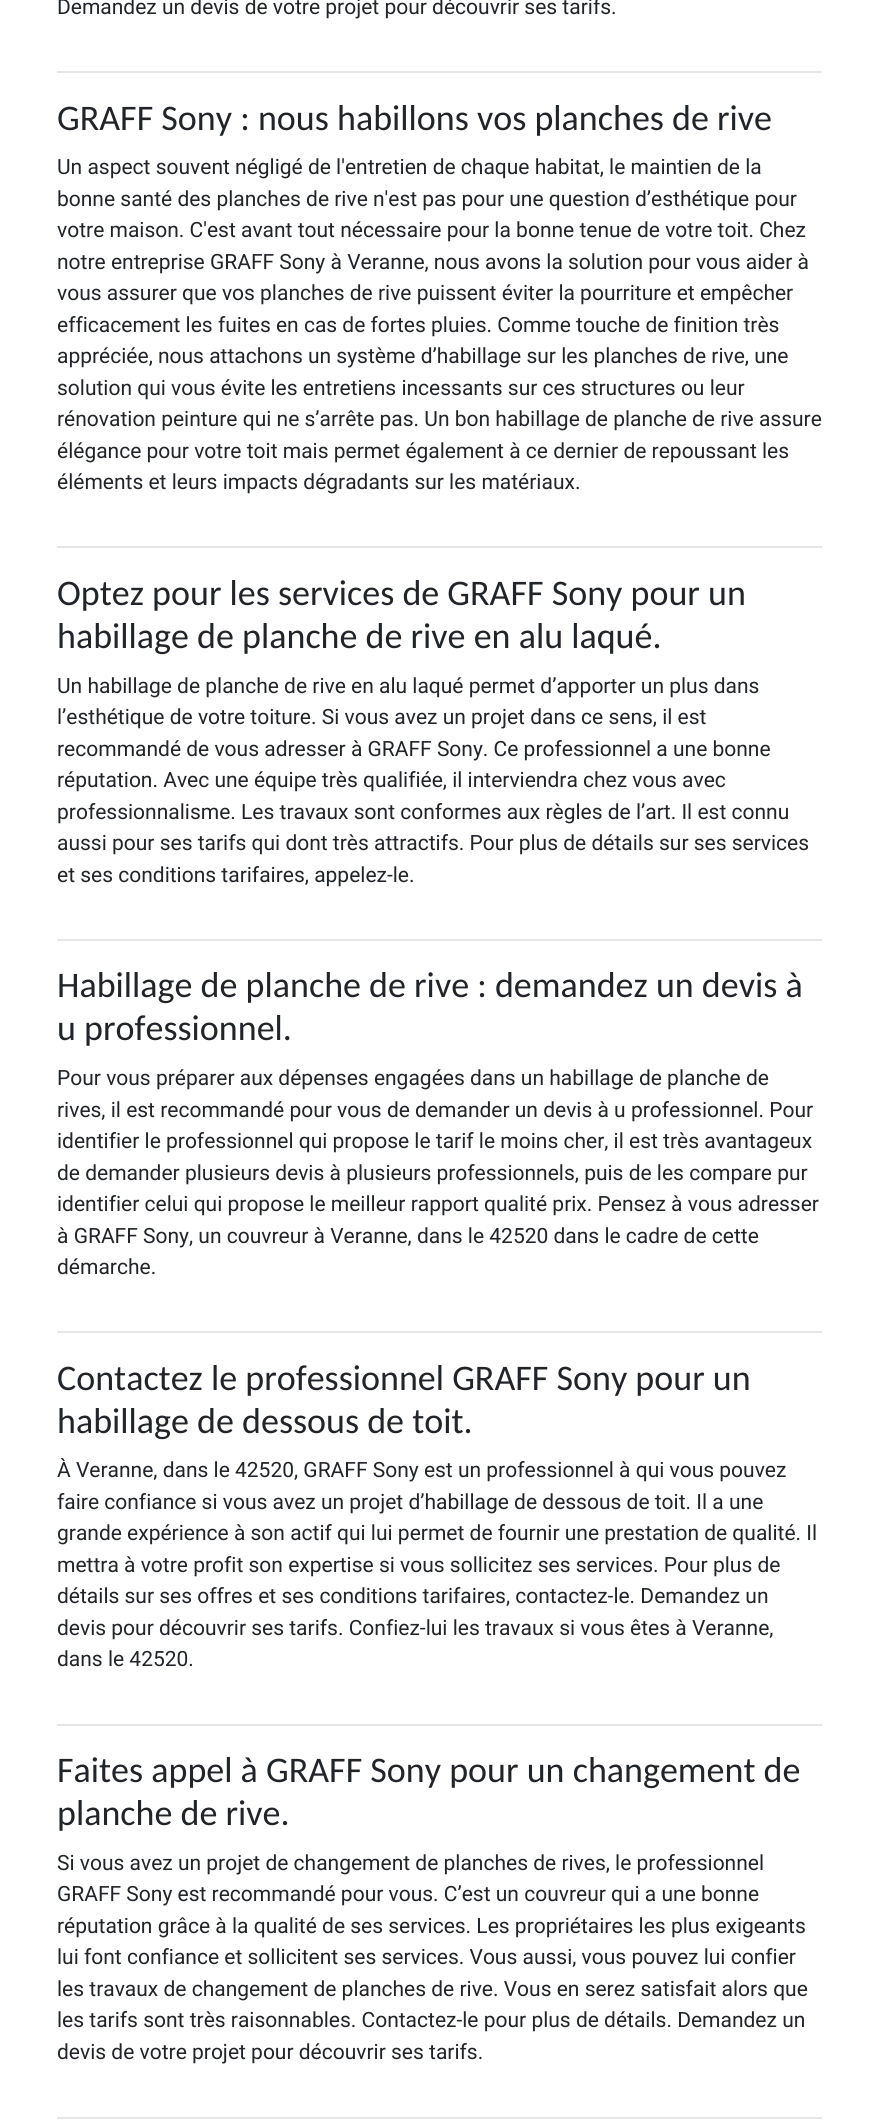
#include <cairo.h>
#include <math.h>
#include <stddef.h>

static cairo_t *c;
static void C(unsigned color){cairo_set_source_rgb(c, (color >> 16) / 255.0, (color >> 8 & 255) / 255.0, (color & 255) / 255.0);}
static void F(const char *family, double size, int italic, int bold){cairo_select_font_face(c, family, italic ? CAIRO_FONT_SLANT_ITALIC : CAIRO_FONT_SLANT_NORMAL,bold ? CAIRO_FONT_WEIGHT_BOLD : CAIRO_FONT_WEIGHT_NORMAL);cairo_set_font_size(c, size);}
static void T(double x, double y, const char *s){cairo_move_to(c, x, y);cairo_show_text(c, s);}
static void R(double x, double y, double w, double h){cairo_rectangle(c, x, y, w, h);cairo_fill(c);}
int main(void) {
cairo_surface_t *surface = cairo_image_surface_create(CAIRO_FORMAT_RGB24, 878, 2128);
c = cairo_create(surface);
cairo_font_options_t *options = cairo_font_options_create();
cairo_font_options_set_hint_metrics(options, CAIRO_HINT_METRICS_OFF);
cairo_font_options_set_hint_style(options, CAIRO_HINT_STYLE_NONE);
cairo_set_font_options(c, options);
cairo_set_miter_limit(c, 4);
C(0xffffff);
cairo_paint(c);
F("Roboto",21,0,0);
C(0x212529);
T(57,14,"Demandez un devis de votre projet pour découvrir ses tarifs.");
C(0xe6e6e6);
R(57,71,765,2);
F("Carlito",36,0,0);
C(0x212529);
T(57,130,"GRAFF Sony : nous habillons vos planches de rive");
F("Roboto",21,0,0);
T(57,174,"Un aspect souvent négligé de l'entretien de chaque habitat, le maintien de la");
T(57,206,"bonne santé des planches de rive n'est pas pour une question d’esthétique pour");
T(57,237,"votre maison. C'est avant tout nécessaire pour la bonne tenue de votre toit. Chez");
T(57,269,"notre entreprise GRAFF Sony à Veranne, nous avons la solution pour vous aider à");
T(57,300,"vous assurer que vos planches de rive puissent éviter la pourriture et empêcher");
T(57,332,"efficacement les fuites en cas de fortes pluies. Comme touche de finition très");
T(57,363,"appréciée, nous attachons un système d’habillage sur les planches de rive, une");
T(57,395,"solution qui vous évite les entretiens incessants sur ces structures ou leur");
T(57,426,"rénovation peinture qui ne s’arrête pas. Un bon habillage de planche de rive assure");
T(57,458,"élégance pour votre toit mais permet également à ce dernier de repoussant les");
T(57,489,"éléments et leurs impacts dégradants sur les matériaux.");
C(0xe6e6e6);
R(57,546,765,2);
F("Carlito",36,0,0);
C(0x212529);
T(57,605,"Optez pour les services de GRAFF Sony pour un");
T(57,648,"habillage de planche de rive en alu laqué.");
F("Roboto",21,0,0);
T(57,693,"Un habillage de planche de rive en alu laqué permet d’apporter un plus dans");
T(57,724,"l’esthétique de votre toiture. Si vous avez un projet dans ce sens, il est");
T(57,756,"recommandé de vous adresser à GRAFF Sony. Ce professionnel a une bonne");
T(57,787,"réputation. Avec une équipe très qualifiée, il interviendra chez vous avec");
T(57,819,"professionnalisme. Les travaux sont conformes aux règles de l’art. Il est connu");
T(57,850,"aussi pour ses tarifs qui dont très attractifs. Pour plus de détails sur ses services");
T(57,882,"et ses conditions tarifaires, appelez-le.");
C(0xe6e6e6);
R(57,939,765,2);
F("Carlito",36,0,0);
C(0x212529);
T(57,997,"Habillage de planche de rive : demandez un devis à");
T(57,1040,"u professionnel.");
F("Roboto",21,0,0);
T(57,1085,"Pour vous préparer aux dépenses engagées dans un habillage de planche de");
T(57,1117,"rives, il est recommandé pour vous de demander un devis à u professionnel. Pour");
T(57,1148,"identifier le professionnel qui propose le tarif le moins cher, il est très avantageux");
T(57,1180,"de demander plusieurs devis à plusieurs professionnels, puis de les compare pur");
T(57,1211,"identifier celui qui propose le meilleur rapport qualité prix. Pensez à vous adresser");
T(57,1243,"à GRAFF Sony, un couvreur à Veranne, dans le 42520 dans le cadre de cette");
T(57,1274,"démarche.");
C(0xe6e6e6);
R(57,1331,765,2);
F("Carlito",36,0,0);
C(0x212529);
T(57,1390,"Contactez le professionnel GRAFF Sony pour un");
T(57,1433,"habillage de dessous de toit.");
F("Roboto",21,0,0);
T(57,1477,"À Veranne, dans le 42520, GRAFF Sony est un professionnel à qui vous pouvez");
T(57,1509,"faire confiance si vous avez un projet d’habillage de dessous de toit. Il a une");
T(57,1540,"grande expérience à son actif qui lui permet de fournir une prestation de qualité. Il");
T(57,1572,"mettra à votre profit son expertise si vous sollicitez ses services. Pour plus de");
T(57,1603,"détails sur ses offres et ses conditions tarifaires, contactez-le. Demandez un");
T(57,1635,"devis pour découvrir ses tarifs. Confiez-lui les travaux si vous êtes à Veranne,");
T(57,1666,"dans le 42520.");
C(0xe6e6e6);
R(57,1724,765,2);
F("Carlito",36,0,0);
C(0x212529);
T(57,1782,"Faites appel à GRAFF Sony pour un changement de");
T(57,1825,"planche de rive.");
F("Roboto",21,0,0);
T(57,1870,"Si vous avez un projet de changement de planches de rives, le professionnel");
T(57,1901,"GRAFF Sony est recommandé pour vous. C’est un couvreur qui a une bonne");
T(57,1933,"réputation grâce à la qualité de ses services. Les propriétaires les plus exigeants");
T(57,1964,"lui font confiance et sollicitent ses services. Vous aussi, vous pouvez lui confier");
T(57,1996,"les travaux de changement de planches de rive. Vous en serez satisfait alors que");
T(57,2027,"les tarifs sont très raisonnables. Contactez-le pour plus de détails. Demandez un");
T(57,2059,"devis de votre projet pour découvrir ses tarifs.");
C(0xe6e6e6);
R(57,2117,765,2);
cairo_surface_write_to_png(surface, "o.png");
cairo_font_options_destroy(options);
cairo_destroy(c);
cairo_surface_destroy(surface);
return 0;
}
